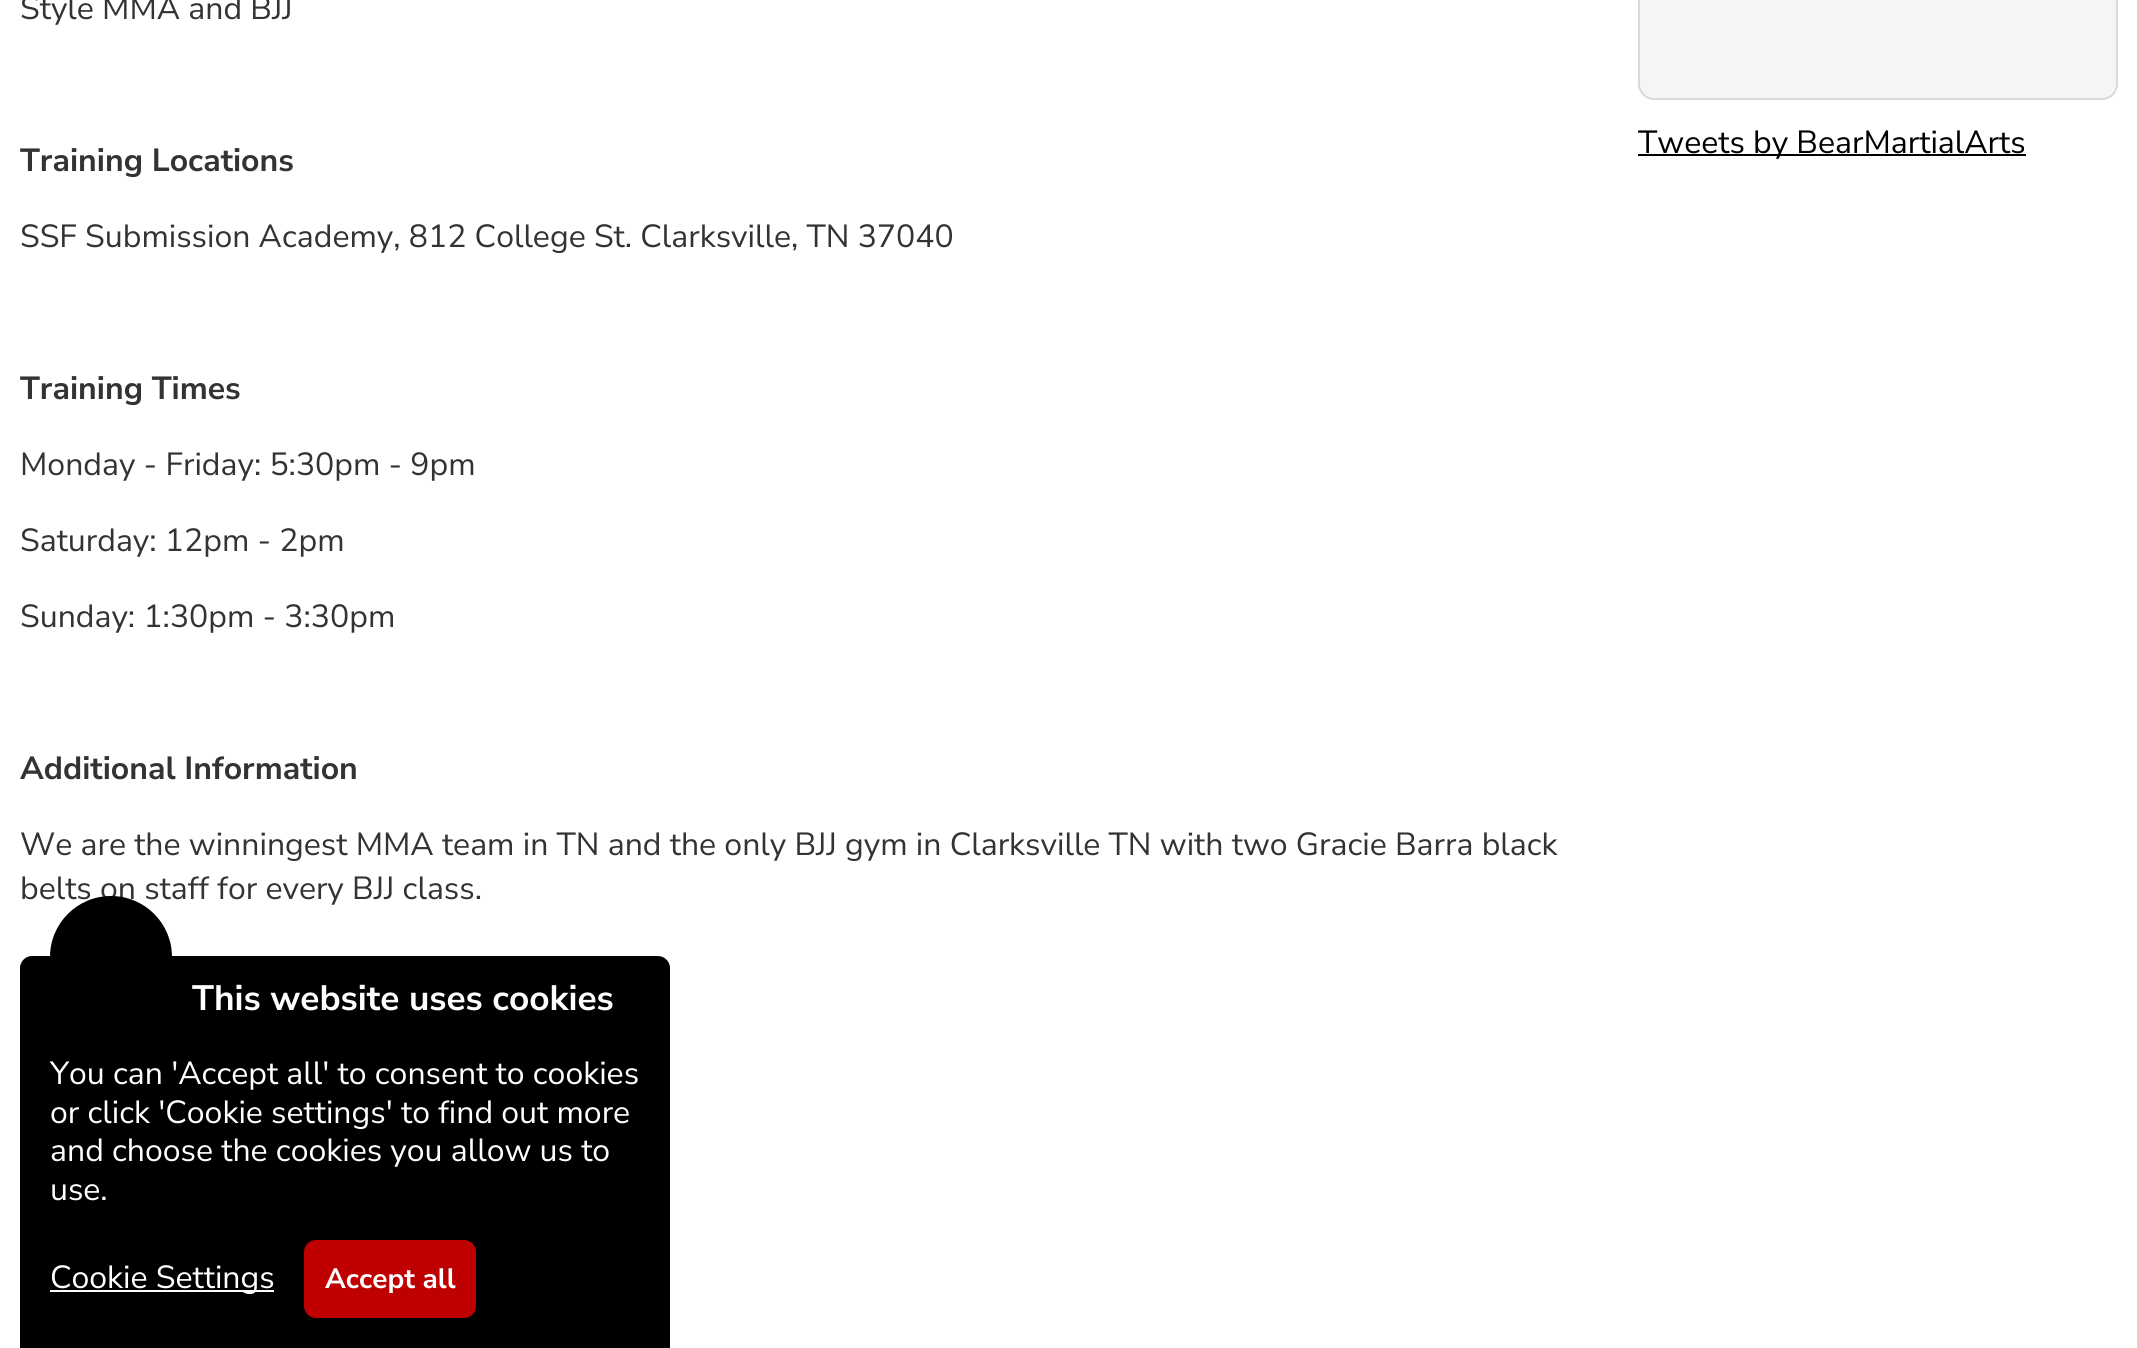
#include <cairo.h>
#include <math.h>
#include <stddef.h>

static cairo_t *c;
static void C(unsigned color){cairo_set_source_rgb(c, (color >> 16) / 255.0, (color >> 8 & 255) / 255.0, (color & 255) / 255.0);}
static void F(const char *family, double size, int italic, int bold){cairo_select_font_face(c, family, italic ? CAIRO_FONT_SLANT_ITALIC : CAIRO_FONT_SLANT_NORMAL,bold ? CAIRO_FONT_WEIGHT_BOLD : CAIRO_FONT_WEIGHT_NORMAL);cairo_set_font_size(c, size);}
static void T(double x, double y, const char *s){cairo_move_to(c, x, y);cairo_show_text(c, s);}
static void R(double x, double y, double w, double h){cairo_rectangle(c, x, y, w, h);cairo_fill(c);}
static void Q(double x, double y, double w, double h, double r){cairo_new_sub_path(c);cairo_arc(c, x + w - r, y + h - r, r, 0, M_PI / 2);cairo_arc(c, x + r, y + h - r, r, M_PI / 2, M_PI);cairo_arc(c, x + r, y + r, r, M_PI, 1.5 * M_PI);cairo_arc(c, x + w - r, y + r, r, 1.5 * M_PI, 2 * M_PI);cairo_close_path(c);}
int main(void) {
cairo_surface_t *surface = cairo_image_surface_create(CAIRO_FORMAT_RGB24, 2137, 1348);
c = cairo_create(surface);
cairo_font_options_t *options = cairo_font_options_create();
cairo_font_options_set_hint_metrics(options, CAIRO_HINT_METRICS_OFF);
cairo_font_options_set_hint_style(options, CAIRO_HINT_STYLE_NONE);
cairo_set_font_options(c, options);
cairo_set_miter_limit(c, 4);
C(0xffffff);
cairo_paint(c);
F("Nunito Sans",32,0,0);
C(0x333333);
T(20,19,"Style MMA and BJJ");
F("Nunito Sans",32,0,1);
T(20,171,"Training Locations");
F("Nunito Sans",32,0,0);
T(20,247,"SSF Submission Academy, 812 College St. Clarksville, TN 37040");
F("Nunito Sans",32,0,1);
T(20,399,"Training Times");
F("Nunito Sans",32,0,0);
T(20,475,"Monday - Friday: 5:30pm - 9pm");
T(20,551,"Saturday: 12pm - 2pm");
T(20,627,"Sunday: 1:30pm - 3:30pm");
F("Nunito Sans",32,0,1);
T(20,779,"Additional Information");
F("Nunito Sans",32,0,0);
T(20,855,"We are the winningest MMA team in TN and the only BJJ gym in Clarksville TN with two Gracie Barra black");
T(20,899,"belts on staff for every BJJ class.");
C(0xf4f5f7);
Q(1639,-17,478,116,15);
cairo_fill_preserve(c);
C(0xd7dada);
cairo_stroke(c);
C(0x000000);
R(1638,154,388,2);
T(1638,153,"Tweets by BearMartialArts");
cairo_new_path(c);
cairo_move_to(c,32,956);
cairo_line_to(c,658,956);
cairo_curve_to(c,664.5,956,670,961.5,670,968);
cairo_line_to(c,670,1348);
cairo_line_to(c,20,1348);
cairo_line_to(c,20,968);
cairo_curve_to(c,20,961.5,25.5,956,32,956);
cairo_close_path(c);
cairo_fill(c);
Q(50,896,122,156,61);
cairo_fill(c);
F("Nunito Sans",35.25,0,1);
C(0xffffff);
T(192,1010,"This website uses cookies");
F("Nunito Sans",32,0,0);
T(50,1084,"You can 'Accept all' to consent to cookies");
T(50,1123,"or click 'Cookie settings' to find out more");
T(50,1161,"and choose the cookies you allow us to");
T(50,1200,"use.");
R(50,1290,224,2);
T(50,1288,"Cookie Settings");
C(0xbf0000);
Q(304,1240,172,78,12);
cairo_fill(c);
F("Nunito Sans",28,0,1);
C(0xffffff);
T(325,1288,"Accept all");
cairo_surface_write_to_png(surface, "o.png");
cairo_font_options_destroy(options);
cairo_destroy(c);
cairo_surface_destroy(surface);
return 0;
}
